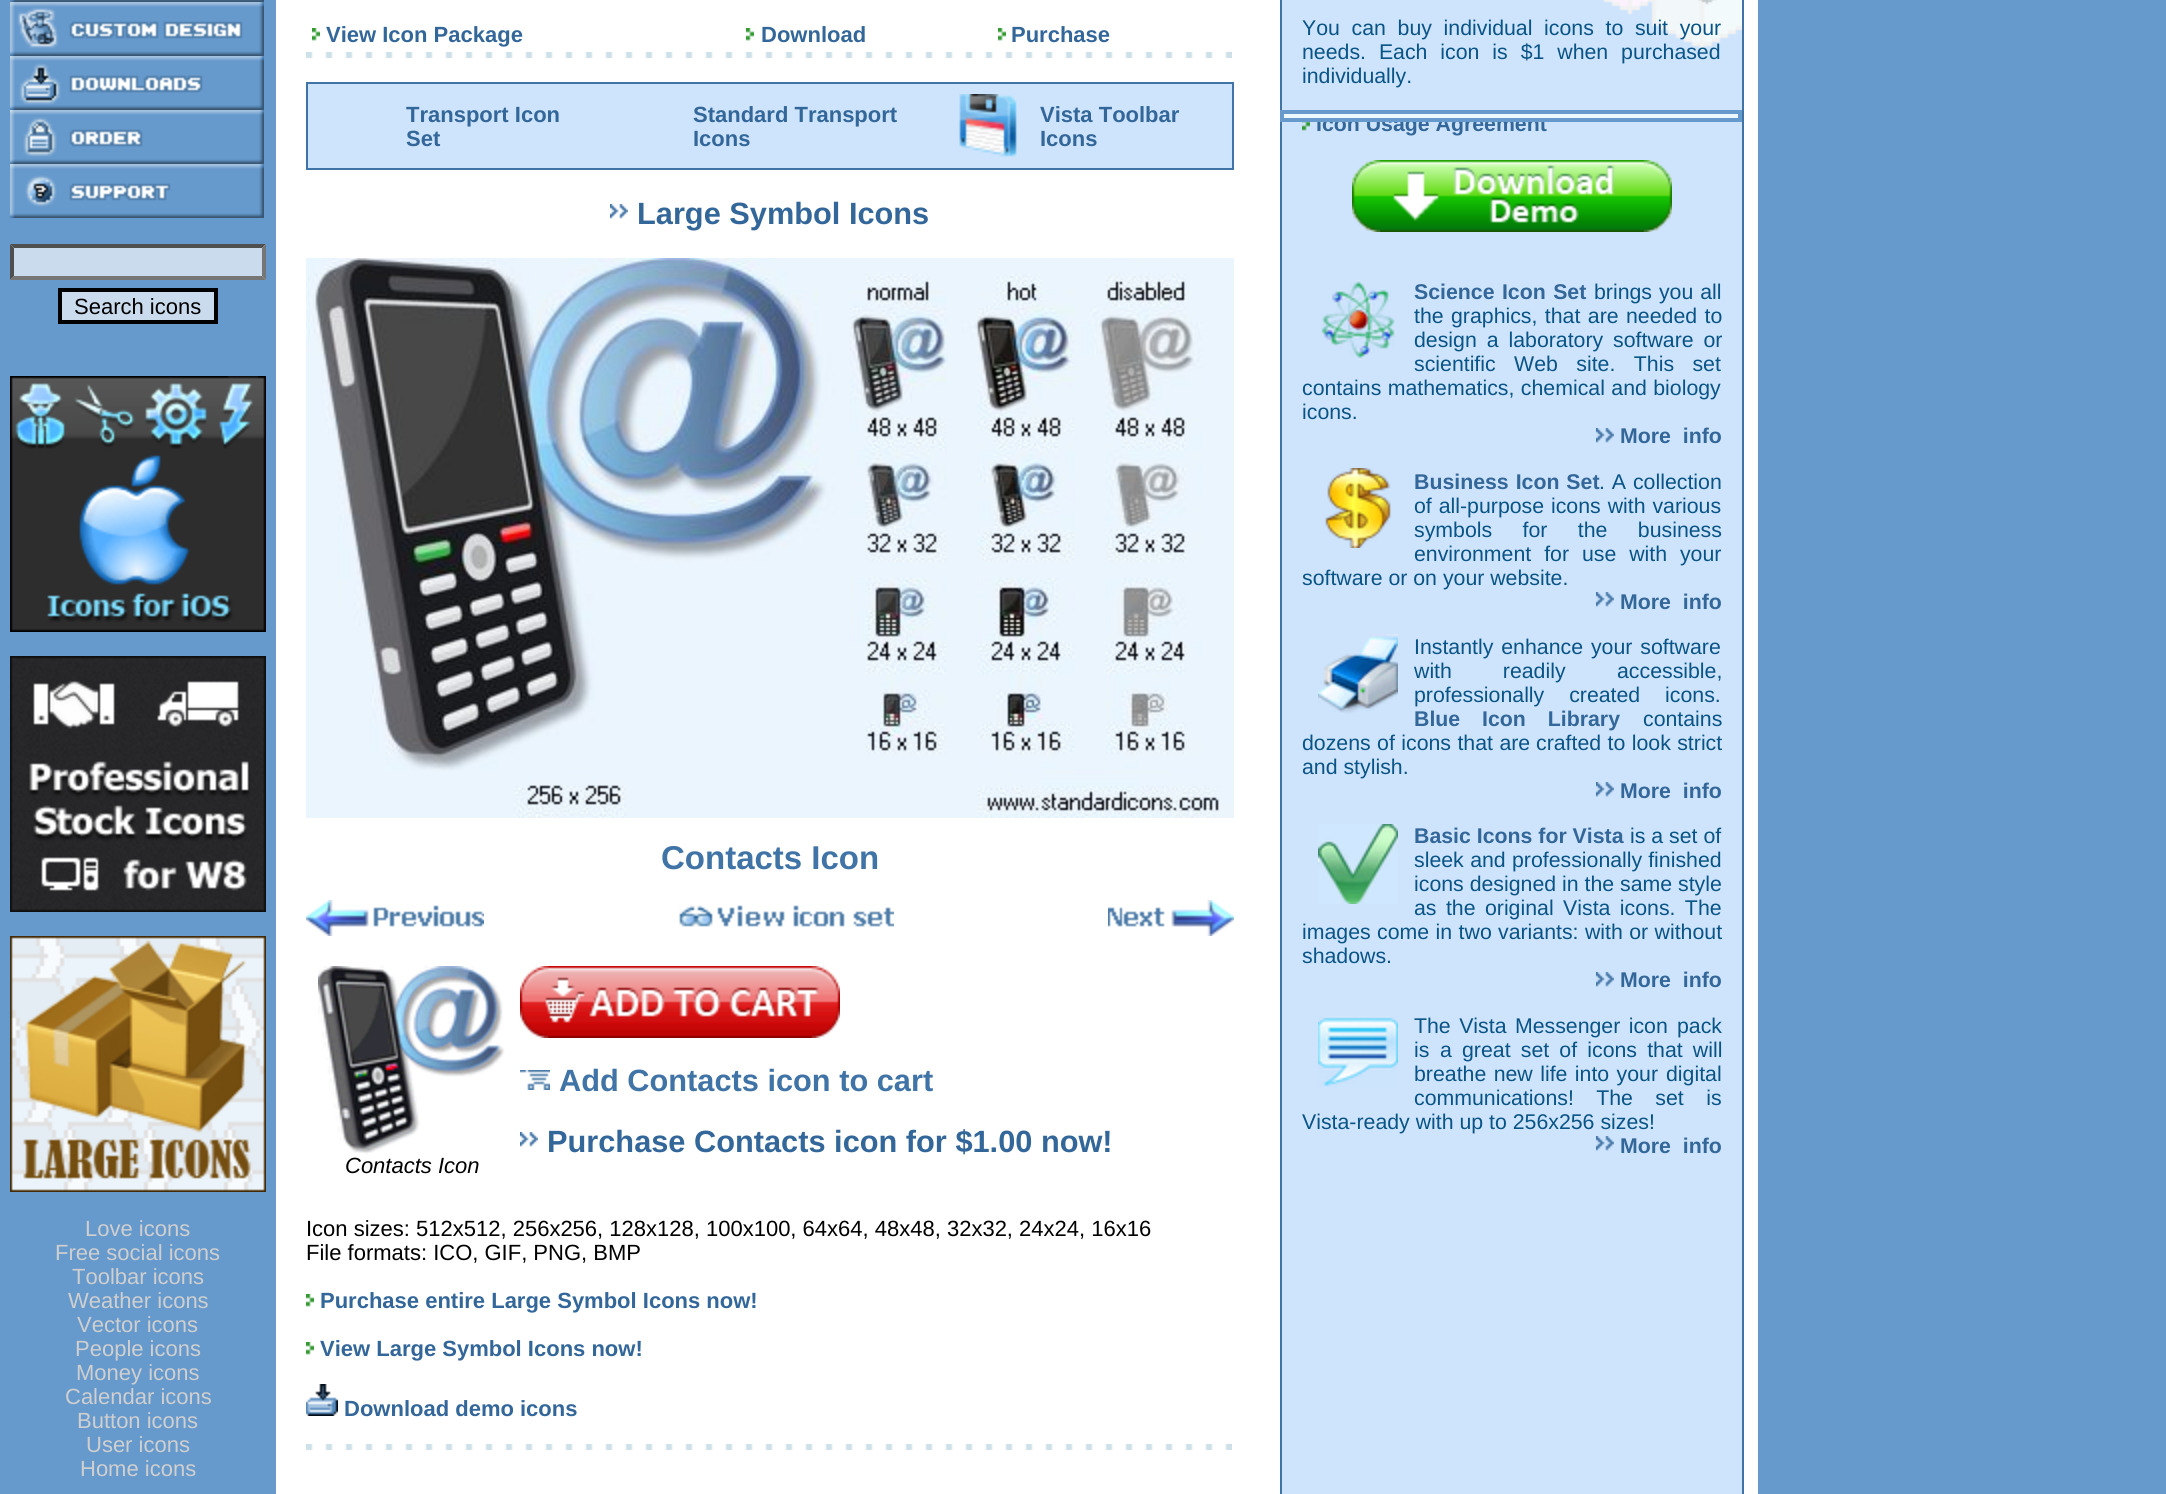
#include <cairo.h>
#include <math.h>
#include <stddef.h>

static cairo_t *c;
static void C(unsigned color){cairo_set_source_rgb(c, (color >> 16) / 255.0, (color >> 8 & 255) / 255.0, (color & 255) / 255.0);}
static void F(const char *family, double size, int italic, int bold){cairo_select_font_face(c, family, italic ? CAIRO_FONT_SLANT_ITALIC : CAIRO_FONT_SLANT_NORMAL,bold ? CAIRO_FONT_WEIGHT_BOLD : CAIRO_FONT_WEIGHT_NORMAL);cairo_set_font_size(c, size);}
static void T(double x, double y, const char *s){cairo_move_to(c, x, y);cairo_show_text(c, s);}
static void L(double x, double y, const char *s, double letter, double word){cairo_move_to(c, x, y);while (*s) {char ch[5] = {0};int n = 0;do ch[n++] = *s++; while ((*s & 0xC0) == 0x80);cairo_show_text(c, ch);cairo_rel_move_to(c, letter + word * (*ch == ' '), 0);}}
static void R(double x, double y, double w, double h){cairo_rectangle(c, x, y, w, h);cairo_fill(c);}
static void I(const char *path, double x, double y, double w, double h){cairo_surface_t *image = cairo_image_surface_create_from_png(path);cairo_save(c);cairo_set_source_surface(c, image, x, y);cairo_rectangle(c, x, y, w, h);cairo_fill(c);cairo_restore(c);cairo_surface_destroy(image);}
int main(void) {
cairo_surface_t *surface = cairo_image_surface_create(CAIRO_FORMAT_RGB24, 2166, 1494);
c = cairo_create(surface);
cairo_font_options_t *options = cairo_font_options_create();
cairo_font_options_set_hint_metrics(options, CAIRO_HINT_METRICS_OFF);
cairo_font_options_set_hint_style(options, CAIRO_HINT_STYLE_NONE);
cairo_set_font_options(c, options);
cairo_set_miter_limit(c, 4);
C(0xffffff);
cairo_paint(c);
C(0x6699cc);
R(0,0,276,1494);
I("1.png",10,0,254,2);
I("2.png",10,2,254,54);
I("3.png",10,56,254,54);
I("4.png",10,110,254,54);
I("5.png",10,164,254,54);
C(0xc9dbed);
R(10,244,256,36);
C(0x4f4f4f);
cairo_new_path(c);
cairo_move_to(c,10,244);
cairo_line_to(c,266,244);
cairo_line_to(c,262,248);
cairo_line_to(c,14,248);
cairo_close_path(c);
cairo_fill(c);
C(0x767676);
cairo_new_path(c);
cairo_move_to(c,266,244);
cairo_line_to(c,266,280);
cairo_line_to(c,262,276);
cairo_line_to(c,262,248);
cairo_close_path(c);
cairo_fill(c);
cairo_new_path(c);
cairo_move_to(c,266,280);
cairo_line_to(c,10,280);
cairo_line_to(c,14,276);
cairo_line_to(c,262,276);
cairo_close_path(c);
cairo_fill(c);
C(0x4f4f4f);
cairo_new_path(c);
cairo_move_to(c,10,280);
cairo_line_to(c,10,244);
cairo_line_to(c,14,248);
cairo_line_to(c,14,276);
cairo_close_path(c);
cairo_fill(c);
C(0xc9dbed);
cairo_rectangle(c,60,290,156,32);
cairo_fill_preserve(c);
C(0x000000);
cairo_set_line_width(c,4);
cairo_stroke(c);
F("Liberation Sans",22,0,0);
T(74,314,"Search icons");
I("6.png",10,376,256,256);
I("7.png",10,656,256,256);
I("8.png",10,936,256,256);
C(0xcfcfcf);
T(85,1236,"Love icons");
T(55,1260,"Free social icons");
T(72,1284,"Toolbar icons");
T(68,1308,"Weather icons");
T(77,1332,"Vector icons");
T(75,1356,"People icons");
T(76,1380,"Money icons");
T(65,1404,"Calendar icons");
T(77,1428,"Button icons");
T(86,1452,"User icons");
T(80,1476,"Home icons");
I("9.png",312,28,8,13);
F("Liberation Sans",22,0,1);
C(0x336699);
T(326,42,"View Icon Package");
I("9.png",746,28,8,13);
T(761,42,"Download");
I("9.png",998,28,8,13);
T(1011,42,"Purchase");
I("10.png",306,52,926,6);
cairo_rectangle(c,307,83,926,86);
C(0x4073a6);
cairo_set_line_width(c,2);
cairo_stroke(c);
C(0xcde4fc);
R(308,84,924,84);
C(0x336699);
T(406,122,"Transport Icon");
T(406,146,"Set");
T(693,122,"Standard Transport");
T(693,146,"Icons");
I("11.png",959,94,58,63);
T(1040,122,"Vista Toolbar");
T(1040,146,"Icons");
I("12.png",610,204,18,15);
F("Liberation Sans",30.75,0,1);
T(637,224,"Large Symbol Icons");
I("13.png",306,258,928,560);
F("Liberation Sans",33,0,1);
C(0x4073a6);
T(661,869,"Contacts Icon");
I("14.png",306,900,178,36);
I("15.png",679,905,215,22);
I("16.png",1108,900,126,36);
I("17.png",520,966,320,72);
I("18.png",520,1070,30,20);
F("Liberation Sans",30.75,0,1);
T(559,1091,"Add Contacts icon to cart");
I("12.png",520,1132,18,15);
C(0x336699);
T(547,1152,"Purchase Contacts icon for $1.00 now!");
I("19.png",318,966,187,188);
F("Liberation Sans",22,1,0);
C(0x000000);
T(345,1173,"Contacts Icon");
F("Liberation Sans",22,0,0);
T(306,1236,"Icon sizes: 512x512, 256x256, 128x128, 100x100, 64x64, 48x48, 32x32, 24x24, 16x16");
T(306,1260,"File formats: ICO, GIF, PNG, BMP");
I("9.png",306,1294,8,13);
F("Liberation Sans",22,0,1);
C(0x336699);
T(320,1308,"Purchase entire Large Symbol Icons now!");
I("9.png",306,1342,8,13);
T(320,1356,"View Large Symbol Icons now!");
I("20.png",306,1384,32,32);
T(344,1416,"Download demo icons");
I("10.png",306,1444,926,6);
C(0xcde4fc);
cairo_rectangle(c,1281,-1,462,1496);
cairo_fill_preserve(c);
C(0x4073a6);
cairo_stroke(c);
I("21.png",1603,0,139,51);
F("Liberation Sans",21.3,0,0);
C(0x095386);
L(1302,35,"You can buy individual icons to suit your",0,5.75);
L(1302,59,"needs. Each icon is $1 when purchased",0,7);
T(1302,83,"individually.");
I("22.png",1302,122,8,9);
F("Liberation Sans",21.3,0,1);
C(0x336699);
T(1316,131,"Icon Usage Agreement");
I("23.png",1352,160,320,72);
I("24.png",1321,280,75,80);
L(1414,299,"Science Icon Set",0,1.5);
F("Liberation Sans",21.3,0,0);
C(0x095386);
L(1594,299,"brings you all",0,1);
T(1414,323,"the");
L(1451,323,"graphics, that are needed to",0,1.5);
L(1414,347,"design a laboratory software or",0,4);
L(1414,371,"scientific Web site. This set",0,12.5);
L(1302,395,"contains mathematics, chemical and biology",0,.5);
T(1302,419,"icons.");
I("25.png",1596,428,18,15);
F("Liberation Sans",21.3,0,1);
C(0x336699);
T(1620,443,"More  info");
I("26.png",1325,468,66,80);
L(1414,489,"Business Icon Set",0,1);
F("Liberation Sans",21.3,0,0);
C(0x095386);
L(1599,489,". A collection",0,1);
L(1414,513,"of all-purpose icons with various",0,1);
L(1414,537,"symbols for the business",0,24.5);
L(1414,561,"environment for use with your",0,7);
T(1302,585,"software or on your website.");
I("25.png",1596,592,18,15);
F("Liberation Sans",21.3,0,1);
C(0x336699);
T(1620,609,"More  info");
I("27.png",1318,634,80,80);
F("Liberation Sans",21.3,0,0);
C(0x095386);
L(1414,654,"Instantly enhance your software",0,2);
L(1414,678,"with readily",0,45);
T(1617,678,"accessible,");
L(1414,702,"professionally created icons.",0,19);
F("Liberation Sans",21.3,0,1);
C(0x336699);
L(1414,726,"Blue Icon Library",0,16);
F("Liberation Sans",21.3,0,0);
C(0x095386);
T(1643,726,"contains");
L(1302,750,"dozens of icons that are",0,.5);
L(1536,750,"crafted to look strict",0,.5);
T(1302,774,"and stylish.");
I("25.png",1596,782,18,15);
F("Liberation Sans",21.3,0,1);
C(0x336699);
T(1620,798,"More  info");
I("28.png",1318,824,80,80);
T(1414,843,"Basic Icons for Vista");
F("Liberation Sans",21.3,0,0);
C(0x095386);
T(1630,843,"is a set of");
L(1414,867,"sleek and",0,.5);
T(1512,867,"professionally finished");
T(1414,891,"icons designed in the same style");
L(1414,915,"as the original Vista icons. The",0,3.5);
L(1302,939,"images come in two",0,.5);
L(1498,939,"variants: with or without",0,.5);
T(1302,963,"shadows.");
I("25.png",1596,972,18,15);
F("Liberation Sans",21.3,0,1);
C(0x336699);
T(1620,987,"More  info");
I("29.png",1318,1016,80,72);
F("Liberation Sans",21.3,0,0);
C(0x095386);
L(1414,1033,"The Vista Messenger icon",0,2.5);
T(1677,1033,"pack");
T(1414,1057,"is");
L(1440,1057,"a great set of icons that will",0,4.25);
L(1414,1081,"breathe new life into your",0,1.5);
T(1666,1081,"digital");
L(1414,1105,"communications! The set is",0,16.5);
T(1302,1129,"Vista-ready with up to 256x256 sizes!");
I("25.png",1596,1136,18,15);
F("Liberation Sans",21.3,0,1);
C(0x336699);
T(1620,1153,"More  info");
C(0x6699cc);
R(1758,0,408,1494);
C(0xedf7fe);
cairo_rectangle(c,1282,112,458,8);
cairo_fill_preserve(c);
C(0x6699cc);
cairo_set_line_width(c,4);
cairo_stroke(c);
cairo_surface_write_to_png(surface, "o.png");
cairo_font_options_destroy(options);
cairo_destroy(c);
cairo_surface_destroy(surface);
return 0;
}
